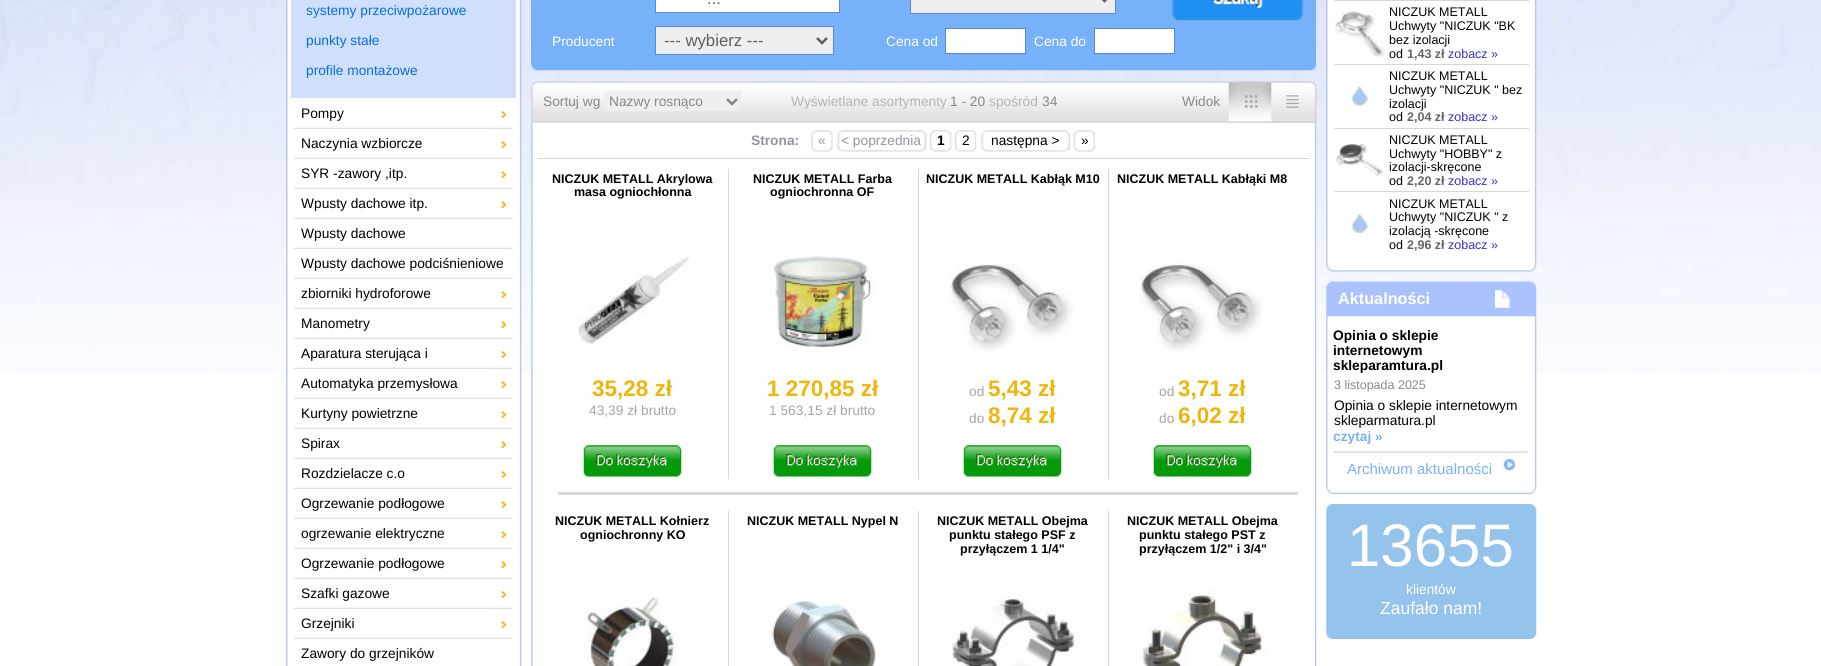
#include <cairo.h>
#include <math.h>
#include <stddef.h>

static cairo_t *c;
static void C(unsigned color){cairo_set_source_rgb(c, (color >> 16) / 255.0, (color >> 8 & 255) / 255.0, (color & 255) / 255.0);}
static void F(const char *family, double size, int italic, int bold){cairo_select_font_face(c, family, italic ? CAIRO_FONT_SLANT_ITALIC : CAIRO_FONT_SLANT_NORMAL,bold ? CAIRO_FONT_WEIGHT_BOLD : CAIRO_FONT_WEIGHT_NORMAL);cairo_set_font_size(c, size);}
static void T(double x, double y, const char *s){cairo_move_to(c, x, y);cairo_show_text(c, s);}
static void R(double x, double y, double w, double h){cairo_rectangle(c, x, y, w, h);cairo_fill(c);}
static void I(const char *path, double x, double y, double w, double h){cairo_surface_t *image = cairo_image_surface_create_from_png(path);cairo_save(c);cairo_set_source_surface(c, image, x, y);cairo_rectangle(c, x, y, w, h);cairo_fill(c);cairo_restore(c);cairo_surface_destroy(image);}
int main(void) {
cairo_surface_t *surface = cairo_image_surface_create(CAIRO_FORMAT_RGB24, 1821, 666);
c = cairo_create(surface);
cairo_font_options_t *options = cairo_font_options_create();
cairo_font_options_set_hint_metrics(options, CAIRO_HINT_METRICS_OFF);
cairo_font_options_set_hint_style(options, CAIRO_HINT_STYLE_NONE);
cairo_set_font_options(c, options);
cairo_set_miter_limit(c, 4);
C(0xffffff);
cairo_paint(c);
I("1.png",0,0,1821,374);
I("2.png",286,0,236,666);
C(0xd0dffc);
R(291,0,225,98);
F("Liberation Sans",13.75,0,0);
C(0x096edf);
T(306,15,"systemy przeciwpożarowe");
T(306,45,"punkty stałe");
T(306,75,"profile montażowe");
I("3.png",501,111,6,7);
C(0x000000);
T(301,118,"Pompy");
I("4.png",293,127,220,2);
I("3.png",501,141,6,7);
T(301,148,"Naczynia wzbiorcze");
I("4.png",293,157,220,2);
I("3.png",501,171,6,7);
T(301,178,"SYR -zawory ,itp.");
I("4.png",293,187,220,2);
I("3.png",501,201,6,7);
T(301,208,"Wpusty dachowe itp.");
I("4.png",293,217,220,2);
T(301,238,"Wpusty dachowe");
I("4.png",293,247,220,2);
T(301,268,"Wpusty dachowe podciśnieniowe");
I("4.png",293,277,220,2);
I("3.png",501,291,6,7);
T(301,298,"zbiorniki hydroforowe");
I("4.png",293,307,220,2);
I("3.png",501,321,6,7);
T(301,328,"Manometry");
I("4.png",293,337,220,2);
I("3.png",501,351,6,7);
T(301,358,"Aparatura sterująca i");
I("4.png",293,367,220,2);
I("3.png",501,381,6,7);
T(301,388,"Automatyka przemysłowa");
I("4.png",293,397,220,2);
I("3.png",501,411,6,7);
T(301,418,"Kurtyny powietrzne");
I("4.png",293,427,220,2);
I("5.png",501,441,6,7);
T(301,448,"Spirax");
I("4.png",293,457,220,2);
I("3.png",501,471,6,7);
T(301,478,"Rozdzielacze c.o");
I("4.png",293,487,220,2);
I("3.png",501,501,6,7);
T(301,508,"Ogrzewanie podłogowe");
I("4.png",293,517,220,2);
I("3.png",501,531,6,7);
T(301,538,"ogrzewanie elektryczne");
I("4.png",293,547,220,2);
I("3.png",501,561,6,7);
T(301,568,"Ogrzewanie podłogowe");
I("4.png",293,577,220,2);
I("3.png",501,591,6,7);
T(301,598,"Szafki gazowe");
I("4.png",293,607,220,2);
I("3.png",501,621,6,7);
T(301,628,"Grzejniki");
I("4.png",293,637,220,2);
T(301,658,"Zawory do grzejników");
C(0x77b1fa);
R(531,0,785,64);
C(0xffffff);
cairo_rectangle(c,655.5,-.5,184,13);
cairo_fill_preserve(c);
C(0x5789de);
cairo_set_line_width(c,1);
cairo_stroke(c);
F("Liberation Sans",16.75,0,0);
C(0x605d5d);
T(707,4,"...");
C(0xefefef);
cairo_rectangle(c,910.5,-.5,205,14);
cairo_fill_preserve(c);
C(0x5789de);
cairo_stroke(c);
cairo_new_path(c);
cairo_move_to(c,1099.5,-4);
cairo_line_to(c,1104.5,1);
cairo_line_to(c,1109.5,-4);
C(0x605d5d);
cairo_set_line_width(c,2.5);
cairo_stroke(c);
I("6.png",1171,0,133,21);
F("Liberation Sans",13.75,0,0);
C(0xffffff);
T(552,46,"Producent");
C(0xefefef);
cairo_rectangle(c,655.5,26.5,178,28);
cairo_fill_preserve(c);
C(0x5789de);
cairo_set_line_width(c,1);
cairo_stroke(c);
cairo_new_path(c);
cairo_move_to(c,817,38);
cairo_line_to(c,822,43);
cairo_line_to(c,827,38);
C(0x605d5d);
cairo_set_line_width(c,2.5);
cairo_stroke(c);
F("Liberation Sans",16.75,0,0);
T(664,46,"--- wybierz ---");
F("Liberation Sans",13.75,0,0);
C(0xffffff);
T(886,46,"Cena od");
cairo_rectangle(c,945.5,28.5,80,25);
cairo_fill_preserve(c);
C(0x5789de);
cairo_set_line_width(c,1);
cairo_stroke(c);
C(0xffffff);
T(1034,46,"Cena do");
cairo_rectangle(c,1094.5,28.5,80,25);
cairo_fill_preserve(c);
C(0x5789de);
cairo_stroke(c);
I("7.png",531,64,786,7);
I("8.png",531,81,786,42);
C(0x8a8686);
T(543,106,"Sortuj wg");
C(0xefefef);
R(604,91,137,20);
cairo_new_path(c);
cairo_move_to(c,727,99);
cairo_line_to(c,732,104);
cairo_line_to(c,737,99);
C(0x8a8686);
cairo_set_line_width(c,2.5);
cairo_stroke(c);
T(609,106,"Nazwy rosnąco");
C(0xb9b1b1);
T(791,106,"Wyświetlane asortymenty");
C(0x8a8686);
T(950,106,"1 - 20");
C(0xb9b1b1);
T(989,106,"spośród");
C(0x8a8686);
T(1042,106,"34");
T(1182,106,"Widok");
I("11.png",531,122,786,544);
I("9.png",1228,81,45,42);
I("10.png",1272,81,45,42);
C(0xd3d7da);
R(538,158,771,1);
F("Liberation Sans",13.75,0,1);
C(0x92959a);
T(751,145,"Strona:");
I("12.png",811,130,22,22);
F("Liberation Sans",13.75,0,0);
T(818,145,"«");
I("13.png",836,130,91,22);
T(841,145,"< poprzednia");
I("14.png",930,130,22,22);
F("Liberation Sans",13.75,0,1);
C(0x000000);
T(937,145,"1");
I("14.png",955,130,22,22);
F("Liberation Sans",13.75,0,0);
T(962,145,"2");
I("15.png",980,130,90,22);
T(991,145,"następna >");
I("16.png",1073,130,22,22);
T(1081,145,"»");
C(0xd7d6d6);
R(728,169,1,310);
F("Liberation Sans",12.5,0,1);
C(0x000000);
T(552,183,"NICZUK METALL Akrylowa");
T(574,196,"masa ogniochłonna");
I("17.png",578,256,112,88);
F("Liberation Sans",22.5,0,1);
C(0xeeb60c);
T(592,396,"35,28 zł");
F("Liberation Sans",13.75,0,0);
C(0xa6a6a6);
T(589,415,"43,39 zł brutto");
I("18.png",583,445,99,32);
C(0xd7d6d6);
R(918,169,1,310);
F("Liberation Sans",12.5,0,1);
C(0x000000);
T(753,183,"NICZUK METALL Farba");
T(770,196,"ogniochronna OF");
I("19.png",768,255,109,94);
F("Liberation Sans",22.5,0,1);
C(0xeeb60c);
T(767,396,"1 270,85 zł");
F("Liberation Sans",13.75,0,0);
C(0xa6a6a6);
T(769,415,"1 563,15 zł brutto");
I("20.png",773,445,99,32);
C(0xd7d6d6);
R(1108,169,1,310);
F("Liberation Sans",12.5,0,1);
C(0x000000);
T(926,183,"NICZUK METALL Kabłąk M10");
I("21.png",948,263,125,89);
F("Liberation Sans",13.75,0,0);
C(0xa6a6a6);
T(969,396,"od");
F("Liberation Sans",22.5,0,1);
C(0xeeb60c);
T(988,396,"5,43 zł");
F("Liberation Sans",13.75,0,0);
C(0xa6a6a6);
T(969,423,"do");
F("Liberation Sans",22.5,0,1);
C(0xeeb60c);
T(988,423,"8,74 zł");
I("22.png",963,445,99,32);
F("Liberation Sans",12.5,0,1);
C(0x000000);
T(1117,183,"NICZUK METALL Kabłąki M8");
I("23.png",1138,263,125,89);
F("Liberation Sans",13.75,0,0);
C(0xa6a6a6);
T(1159,396,"od");
F("Liberation Sans",22.5,0,1);
C(0xeeb60c);
T(1178,396,"3,71 zł");
F("Liberation Sans",13.75,0,0);
C(0xa6a6a6);
T(1159,423,"do");
F("Liberation Sans",22.5,0,1);
C(0xeeb60c);
T(1178,423,"6,02 zł");
I("18.png",1153,445,99,32);
C(0xd8d8d8);
R(558,492,740,3);
C(0xd7d6d6);
R(728,511,1,155);
F("Liberation Sans",12.5,0,1);
C(0x000000);
T(555,525,"NICZUK METALL Kołnierz");
T(580,539,"ogniochronny KO");
I("24.png",579,597,99,69);
C(0xd7d6d6);
R(918,511,1,155);
C(0x000000);
T(747,525,"NICZUK METALL Nypel N");
I("25.png",769,591,107,75);
C(0xd7d6d6);
R(1108,511,1,155);
C(0x000000);
T(937,525,"NICZUK METALL Obejma");
T(949,539,"punktu stałego PSF z");
T(960,553,"przyłączem 1 1/4\"");
I("26.png",949,598,128,68);
T(1127,525,"NICZUK METALL Obejma");
T(1139,539,"punktu stałego PST z");
T(1139,553,"przyłączem 1/2\" i 3/4\"");
I("27.png",1139,589,128,77);
I("28.png",1326,0,211,263);
C(0xd7d6d6);
R(1334,0,195,1);
I("29.png",1335,10,50,47);
R(1334,64,195,1);
F("Liberation Sans",12.5,0,0);
C(0x000000);
T(1389,16,"NICZUK METALL");
T(1389,30,"Uchwyty \"NICZUK \"BK");
T(1389,44,"bez izolacji");
T(1389,58,"od");
F("Liberation Sans",12.5,0,1);
C(0x656565);
T(1407,58,"1,43 zł");
F("Liberation Sans",12.5,0,0);
C(0x3333cc);
T(1448,58,"zobacz »");
I("30.png",1352,86,16,20);
C(0xd7d6d6);
R(1334,128,195,1);
C(0x000000);
T(1389,80,"NICZUK METALL");
T(1389,94,"Uchwyty \"NICZUK \" bez");
T(1389,108,"izolacji");
T(1389,121,"od");
F("Liberation Sans",12.5,0,1);
C(0x656565);
T(1407,121,"2,04 zł");
F("Liberation Sans",12.5,0,0);
C(0x3333cc);
T(1448,121,"zobacz »");
I("31.png",1336,143,47,33);
C(0xd7d6d6);
R(1334,191,195,1);
C(0x000000);
T(1389,144,"NICZUK METALL");
T(1389,158,"Uchwyty \"HOBBY\" z");
T(1389,171,"izolacji-skręcone");
T(1389,185,"od");
F("Liberation Sans",12.5,0,1);
C(0x656565);
T(1407,185,"2,20 zł");
F("Liberation Sans",12.5,0,0);
C(0x3333cc);
T(1448,185,"zobacz »");
I("32.png",1352,214,16,19);
C(0x000000);
T(1389,208,"NICZUK METALL");
T(1389,221,"Uchwyty \"NICZUK \" z");
T(1389,235,"izolacją -skręcone");
T(1389,249,"od");
F("Liberation Sans",12.5,0,1);
C(0x656565);
T(1407,249,"2,96 zł");
F("Liberation Sans",12.5,0,0);
C(0x3333cc);
T(1448,249,"zobacz »");
I("33.png",1326,262,211,10);
I("34.png",1326,281,211,36);
I("35.png",1495,290,15,18);
F("Liberation Sans",16.25,0,1);
C(0xffffff);
T(1338,304,"Aktualności");
I("36.png",1326,316,211,170);
F("Liberation Sans",13.75,0,1);
C(0x000000);
T(1333,340,"Opinia o sklepie");
T(1333,355,"internetowym");
T(1333,370,"skleparamtura.pl");
F("Liberation Sans",12.5,0,0);
C(0x8a8686);
T(1334,389,"3 listopada 2025");
F("Liberation Sans",13.75,0,0);
C(0x000000);
T(1334,410,"Opinia o sklepie internetowym");
T(1334,425,"skleparmatura.pl");
F("Liberation Sans",13.75,0,1);
C(0x79b2f3);
T(1333,441,"czytaj »");
I("37.png",1333,451,195,2);
I("38.png",1503,459,12,12);
F("Liberation Sans",15,0,0);
T(1347,474,"Archiwum aktualności");
I("39.png",1326,485,211,9);
I("40.png",1326,504,211,135);
F("Liberation Sans",60,0,0);
C(0xffffff);
T(1347,566,"13655");
F("Liberation Sans",13.75,0,0);
T(1406,594,"klientów");
F("Liberation Sans",17.5,0,0);
T(1380,614,"Zaufało nam!");
cairo_surface_write_to_png(surface, "o.png");
cairo_font_options_destroy(options);
cairo_destroy(c);
cairo_surface_destroy(surface);
return 0;
}
